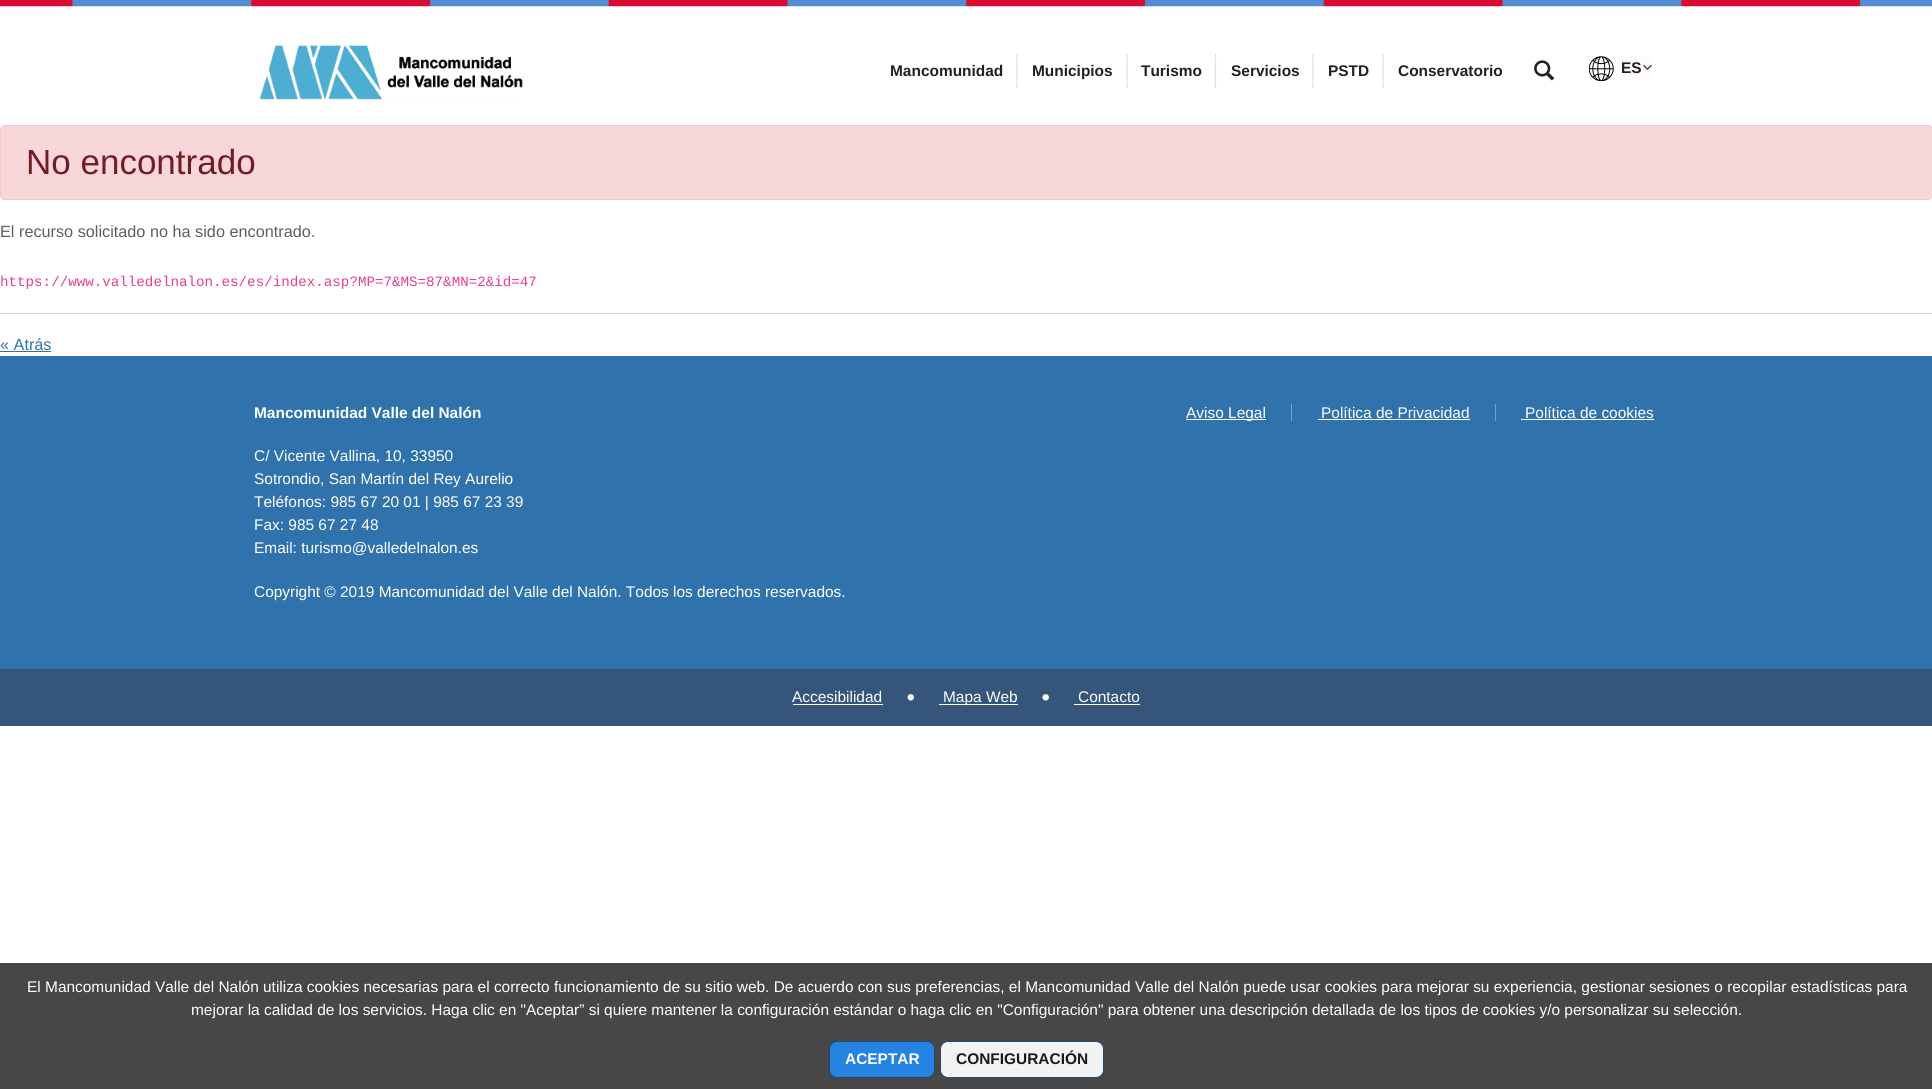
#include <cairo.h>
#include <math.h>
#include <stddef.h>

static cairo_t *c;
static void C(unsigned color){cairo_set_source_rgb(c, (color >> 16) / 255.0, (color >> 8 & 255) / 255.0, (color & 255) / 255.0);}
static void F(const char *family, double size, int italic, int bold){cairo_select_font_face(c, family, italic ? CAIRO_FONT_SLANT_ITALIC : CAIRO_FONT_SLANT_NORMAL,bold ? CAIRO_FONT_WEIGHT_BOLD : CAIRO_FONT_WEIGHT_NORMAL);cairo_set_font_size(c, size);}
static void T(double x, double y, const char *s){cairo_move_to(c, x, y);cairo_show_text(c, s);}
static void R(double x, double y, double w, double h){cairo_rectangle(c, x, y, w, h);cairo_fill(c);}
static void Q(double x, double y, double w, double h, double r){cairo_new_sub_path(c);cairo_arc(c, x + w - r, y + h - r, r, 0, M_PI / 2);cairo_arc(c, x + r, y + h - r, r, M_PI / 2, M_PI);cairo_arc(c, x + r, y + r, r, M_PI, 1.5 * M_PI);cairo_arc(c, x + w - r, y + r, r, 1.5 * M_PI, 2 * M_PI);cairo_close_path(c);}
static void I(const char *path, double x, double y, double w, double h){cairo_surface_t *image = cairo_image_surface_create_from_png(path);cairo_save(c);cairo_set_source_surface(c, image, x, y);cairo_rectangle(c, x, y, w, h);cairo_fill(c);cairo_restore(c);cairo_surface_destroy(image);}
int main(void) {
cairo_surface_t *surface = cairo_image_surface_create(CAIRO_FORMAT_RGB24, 1932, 1089);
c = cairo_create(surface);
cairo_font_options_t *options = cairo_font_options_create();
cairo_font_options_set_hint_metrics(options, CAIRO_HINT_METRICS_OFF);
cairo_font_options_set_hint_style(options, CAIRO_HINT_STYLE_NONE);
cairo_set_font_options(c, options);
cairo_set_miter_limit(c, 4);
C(0xffffff);
cairo_paint(c);
I("1.png",0,0,1932,7);
I("2.png",260,45,263,55);
cairo_new_path(c);
cairo_move_to(c,1017,54);
cairo_line_to(c,1017,89);
C(0xbfbfc1);
cairo_set_line_width(c,1.2);
cairo_set_dash(c,(double[]){1.25,1.25},2,0);
cairo_stroke(c);
F("Liberation Sans",15.44,0,1);
C(0x212121);
T(890,76,"Mancomunidad");
cairo_new_path(c);
cairo_move_to(c,1127,54);
cairo_line_to(c,1127,89);
C(0xbfbfc1);
cairo_stroke(c);
C(0x212121);
T(1032,76,"Municipios");
cairo_new_path(c);
cairo_move_to(c,1215.5,54);
cairo_line_to(c,1215.5,89);
C(0xbfbfc1);
cairo_stroke(c);
C(0x212121);
T(1141,76,"Turismo");
cairo_new_path(c);
cairo_move_to(c,1313,54);
cairo_line_to(c,1313,89);
C(0xbfbfc1);
cairo_stroke(c);
C(0x212121);
T(1231,76,"Servicios");
cairo_new_path(c);
cairo_move_to(c,1383,54);
cairo_line_to(c,1383,89);
C(0xbfbfc1);
cairo_stroke(c);
C(0x212121);
T(1328,76,"PSTD");
T(1398,76,"Conservatorio");
I("3.png",1534,60,20,21);
I("4.png",1589,56,25,25);
C(0xfffafa);
R(1621,56,32,24);
C(0x212121);
T(1621,73,"ES");
I("5.png",1643,64,9,6);
C(0xf8d7da);
Q(.5,125.5,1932,74,4.5);
cairo_fill_preserve(c);
C(0xf5c6cb);
cairo_set_line_width(c,1);
cairo_set_dash(c,NULL,0,0);
cairo_stroke(c);
F("Liberation Sans",35,0,0);
C(0x721c24);
T(26,174,"No encontrado");
F("Liberation Sans",16.25,0,0);
C(0x5e5e5e);
T(0,237,"El recurso solicitado no ha sido encontrado.");
F("Liberation Mono",14.2,0,0);
C(0xe83e8c);
T(0,286,"https://www.valledelnalon.es/es/index.asp?MP=7&MS=87&MN=2&id=47");
C(0xcdced9);
R(0,313,1932,1);
F("Liberation Sans",16.25,0,0);
C(0x3072ab);
T(0,350,"« Atrás");
R(0,351,51,1);
R(0,356,1932,313);
F("Liberation Sans",15.44,0,1);
C(0xffffff);
T(254,418,"Mancomunidad Valle del Nalón");
F("Liberation Sans",15.44,0,0);
T(254,461,"C/ Vicente Vallina, 10, 33950");
T(254,484,"Sotrondio, San Martín del Rey Aurelio");
T(254,507,"Teléfonos: 985 67 20 01 | 985 67 23 39");
T(254,530,"Fax: 985 67 27 48");
T(254,553,"Email: turismo@valledelnalon.es");
T(254,597,"Copyright © 2019 Mancomunidad del Valle del Nalón. Todos los derechos reservados.");
R(1186,419,80,1);
T(1186,418,"Aviso Legal");
C(0x71a1d0);
R(1291,404,1,17);
C(0xffffff);
T(1321,418,"Política de Privacidad");
C(0x71a1d0);
R(1495,404,1,17);
C(0xffffff);
R(1318,419,152,1);
T(1525,418,"Política de cookies");
R(1521,419,133,1);
C(0x36557a);
R(0,669,1932,57);
C(0xffffff);
T(792,702,"Accesibilidad");
R(793,704,90,1);
I("6.png",907,694,7,7);
R(939,704,79,1);
T(943,702,"Mapa Web");
I("6.png",1042,694,7,7);
T(1078,702,"Contacto");
R(1074,704,66,1);
C(0x474747);
R(0,963,1932,126);
C(0xffffff);
T(27,992,"El Mancomunidad Valle del Nalón utiliza cookies necesarias para el correcto funcionamiento de su sitio web. De acuerdo con sus preferencias, el Mancomunidad Valle del Nalón puede usar cookies para mejorar su experiencia, gestionar sesiones o recopilar estadísticas para");
T(191,1015,"mejorar la calidad de los servicios. Haga clic en \"Aceptar” si quiere mantener la configuración estándar o haga clic en \"Configuración\" para obtener una descripción detallada de los tipos de cookies y/o personalizar su selección.");
C(0x2583e1);
Q(829.5,1041.5,105,36,7.5);
cairo_fill_preserve(c);
C(0x21476d);
cairo_stroke(c);
F("Liberation Sans",15.44,0,1);
C(0xffffff);
T(845,1064,"ACEPTAR");
C(0xf2f2f2);
Q(940.5,1041.5,163,36,7.5);
cairo_fill_preserve(c);
C(0x21476d);
cairo_stroke(c);
C(0x1a1a1a);
T(956,1064,"CONFIGURACIÓN");
cairo_surface_write_to_png(surface, "o.png");
cairo_font_options_destroy(options);
cairo_destroy(c);
cairo_surface_destroy(surface);
return 0;
}
